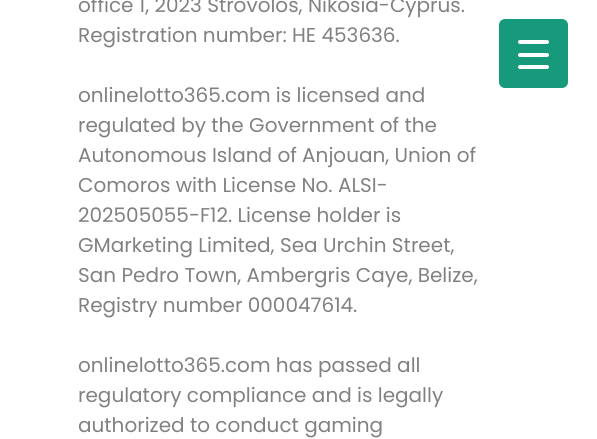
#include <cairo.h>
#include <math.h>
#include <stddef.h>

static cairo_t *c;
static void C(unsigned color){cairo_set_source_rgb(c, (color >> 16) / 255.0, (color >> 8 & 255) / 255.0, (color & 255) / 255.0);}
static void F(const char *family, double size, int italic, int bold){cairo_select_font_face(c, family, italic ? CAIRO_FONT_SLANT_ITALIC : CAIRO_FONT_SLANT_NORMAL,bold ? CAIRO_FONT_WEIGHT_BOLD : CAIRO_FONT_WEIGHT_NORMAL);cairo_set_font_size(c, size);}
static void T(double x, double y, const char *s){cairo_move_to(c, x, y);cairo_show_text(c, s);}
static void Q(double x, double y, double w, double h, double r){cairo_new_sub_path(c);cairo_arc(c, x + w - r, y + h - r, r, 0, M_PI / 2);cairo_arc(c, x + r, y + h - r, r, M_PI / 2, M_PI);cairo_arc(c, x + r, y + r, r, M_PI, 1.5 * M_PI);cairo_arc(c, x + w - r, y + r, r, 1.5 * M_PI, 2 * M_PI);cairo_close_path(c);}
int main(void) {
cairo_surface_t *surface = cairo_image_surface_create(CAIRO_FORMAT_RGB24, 597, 439);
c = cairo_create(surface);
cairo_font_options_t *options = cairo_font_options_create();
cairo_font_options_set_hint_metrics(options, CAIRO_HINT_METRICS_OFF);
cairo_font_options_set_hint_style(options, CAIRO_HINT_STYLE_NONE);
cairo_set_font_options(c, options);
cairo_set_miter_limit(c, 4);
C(0xffffff);
cairo_paint(c);
F("Poppins",20,0,0);
C(0x818181);
T(78,12,"office 1, 2023 Strovolos, Nikosia-Cyprus.");
T(78,42,"Registration number: HE 453636.");
T(78,102,"onlinelotto365.com is licensed and");
T(78,132,"regulated by the Government of the");
T(78,162,"Autonomous Island of Anjouan, Union of");
T(78,192,"Comoros with License No. ALSI-");
T(78,222,"202505055-F12. License holder is");
T(78,252,"GMarketing Limited, Sea Urchin Street,");
T(78,282,"San Pedro Town, Ambergris Caye, Belize,");
T(78,312,"Registry number 000047614.");
T(78,372,"onlinelotto365.com has passed all");
T(78,402,"regulatory compliance and is legally");
T(78,432,"authorized to conduct gaming");
C(0x17997b);
Q(499,19,69,69,6);
cairo_fill(c);
C(0xffffff);
Q(518,53,31,4,2);
cairo_fill(c);
Q(518,40,31,4,2);
cairo_fill(c);
Q(518,65,31,4,2);
cairo_fill(c);
cairo_surface_write_to_png(surface, "o.png");
cairo_font_options_destroy(options);
cairo_destroy(c);
cairo_surface_destroy(surface);
return 0;
}
